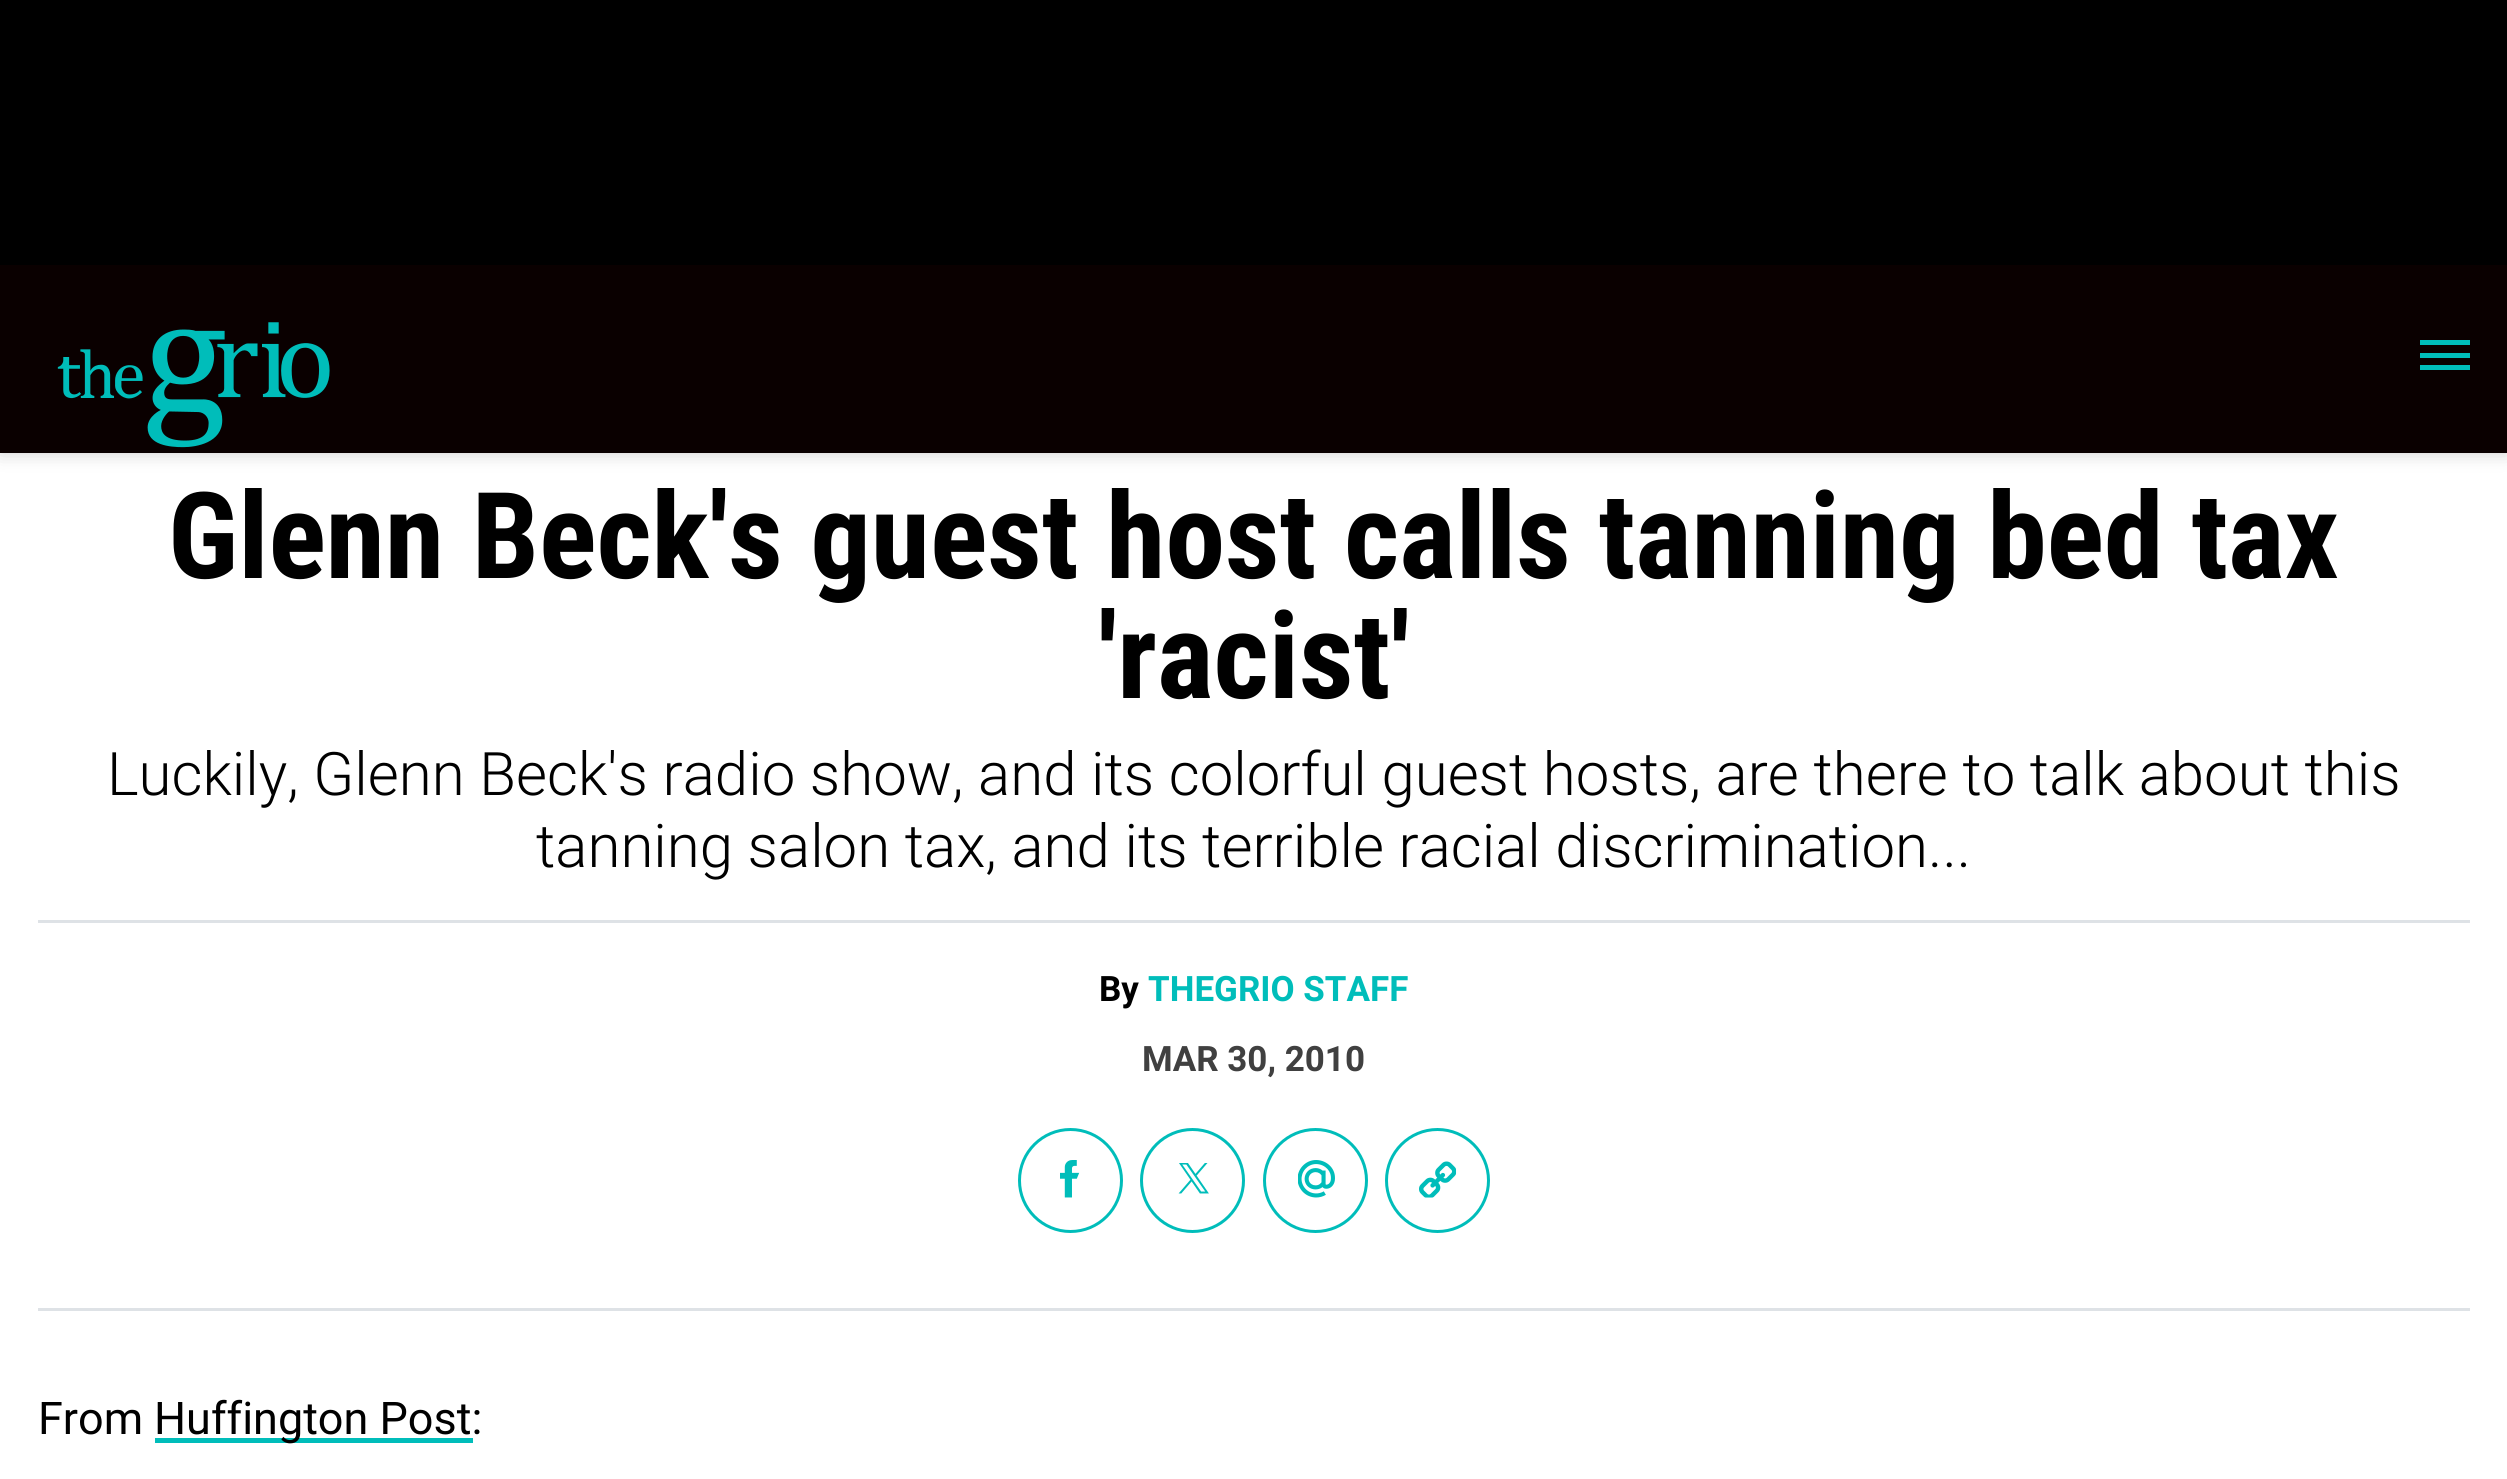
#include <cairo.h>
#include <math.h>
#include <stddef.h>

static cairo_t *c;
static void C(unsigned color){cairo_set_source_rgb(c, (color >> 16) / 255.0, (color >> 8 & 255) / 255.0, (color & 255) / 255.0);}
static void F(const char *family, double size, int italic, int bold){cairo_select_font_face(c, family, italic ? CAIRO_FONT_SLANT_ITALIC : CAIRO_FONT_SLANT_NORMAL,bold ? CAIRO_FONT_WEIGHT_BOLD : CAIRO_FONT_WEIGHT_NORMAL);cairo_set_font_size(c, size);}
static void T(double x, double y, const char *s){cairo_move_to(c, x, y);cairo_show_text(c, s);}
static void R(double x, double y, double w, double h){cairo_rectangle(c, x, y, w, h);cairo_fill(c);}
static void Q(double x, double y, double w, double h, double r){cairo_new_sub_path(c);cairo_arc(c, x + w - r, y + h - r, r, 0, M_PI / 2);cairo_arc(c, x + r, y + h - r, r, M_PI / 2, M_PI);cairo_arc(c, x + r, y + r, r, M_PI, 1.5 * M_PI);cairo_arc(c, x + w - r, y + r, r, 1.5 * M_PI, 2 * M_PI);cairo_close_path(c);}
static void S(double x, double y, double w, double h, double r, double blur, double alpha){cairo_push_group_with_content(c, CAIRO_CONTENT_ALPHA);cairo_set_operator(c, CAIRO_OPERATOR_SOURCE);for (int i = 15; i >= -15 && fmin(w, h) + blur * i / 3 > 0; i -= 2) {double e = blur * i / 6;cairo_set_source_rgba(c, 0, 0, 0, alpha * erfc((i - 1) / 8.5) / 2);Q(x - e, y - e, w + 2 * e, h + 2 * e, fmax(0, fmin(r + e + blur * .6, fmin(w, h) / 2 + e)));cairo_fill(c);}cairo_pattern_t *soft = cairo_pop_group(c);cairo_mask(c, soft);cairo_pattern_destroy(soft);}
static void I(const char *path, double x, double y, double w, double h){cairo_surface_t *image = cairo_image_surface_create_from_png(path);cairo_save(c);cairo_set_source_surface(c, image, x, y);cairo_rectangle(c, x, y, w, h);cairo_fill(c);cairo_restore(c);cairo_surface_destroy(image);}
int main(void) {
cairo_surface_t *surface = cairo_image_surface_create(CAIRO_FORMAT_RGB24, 2507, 1479);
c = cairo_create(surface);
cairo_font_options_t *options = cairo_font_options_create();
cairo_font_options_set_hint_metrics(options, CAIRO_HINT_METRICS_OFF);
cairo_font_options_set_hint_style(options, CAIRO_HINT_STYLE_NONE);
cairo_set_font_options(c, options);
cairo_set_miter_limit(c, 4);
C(0xffffff);
cairo_paint(c);
C(0x000000);
R(0,0,2507,265);
C(0x000000);
S(0,265,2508,188,0,9,.2);
C(0x0a0000);
R(0,265,2507,188);
I("1.png",57,322,273,126);
C(0x00bdba);
R(2420,340,50,5);
R(2420,353,50,5);
R(2420,365,50,5);
F("Roboto Condensed",120,0,1);
C(0x000000);
T(168,578,"Glenn Beck's guest host calls tanning bed tax");
T(1098,698,"'racist'");
F("Roboto Light",60,0,0);
T(107,795,"Luckily, Glenn Beck's radio show, and its colorful guest hosts, are there to talk about this");
T(536,867,"tanning salon tax, and its terrible racial discrimination...");
C(0xdee2e6);
R(38,920,2432,3);
R(38,1308,2432,3);
F("Roboto",35,0,1);
C(0x000000);
T(1099,1001,"By");
C(0x00bdba);
T(1148,1001,"THEGRIO STAFF");
C(0x404040);
T(1142,1071,"MAR 30, 2010");
cairo_new_path(c);
cairo_arc(c,1070.5,1180.5,51,0,2 * M_PI);
C(0x00bdba);
cairo_set_line_width(c,3);
cairo_stroke(c);
I("2.png",1060,1160,20,38);
cairo_arc(c,1192.5,1180.5,51,0,2 * M_PI);
cairo_stroke(c);
I("3.png",1178,1163,31,31);
cairo_arc(c,1315.5,1180.5,51,0,2 * M_PI);
cairo_stroke(c);
I("4.png",1298,1160,37,38);
cairo_arc(c,1437.5,1180.5,51,0,2 * M_PI);
cairo_stroke(c);
I("5.png",1419,1161,38,37);
F("Roboto",45,0,0);
C(0x000000);
T(38,1434,"From");
C(0x00bdba);
R(155,1438,318,5);
C(0x000000);
T(154,1434,"Huffington Post:");
cairo_surface_write_to_png(surface, "o.png");
cairo_font_options_destroy(options);
cairo_destroy(c);
cairo_surface_destroy(surface);
return 0;
}
